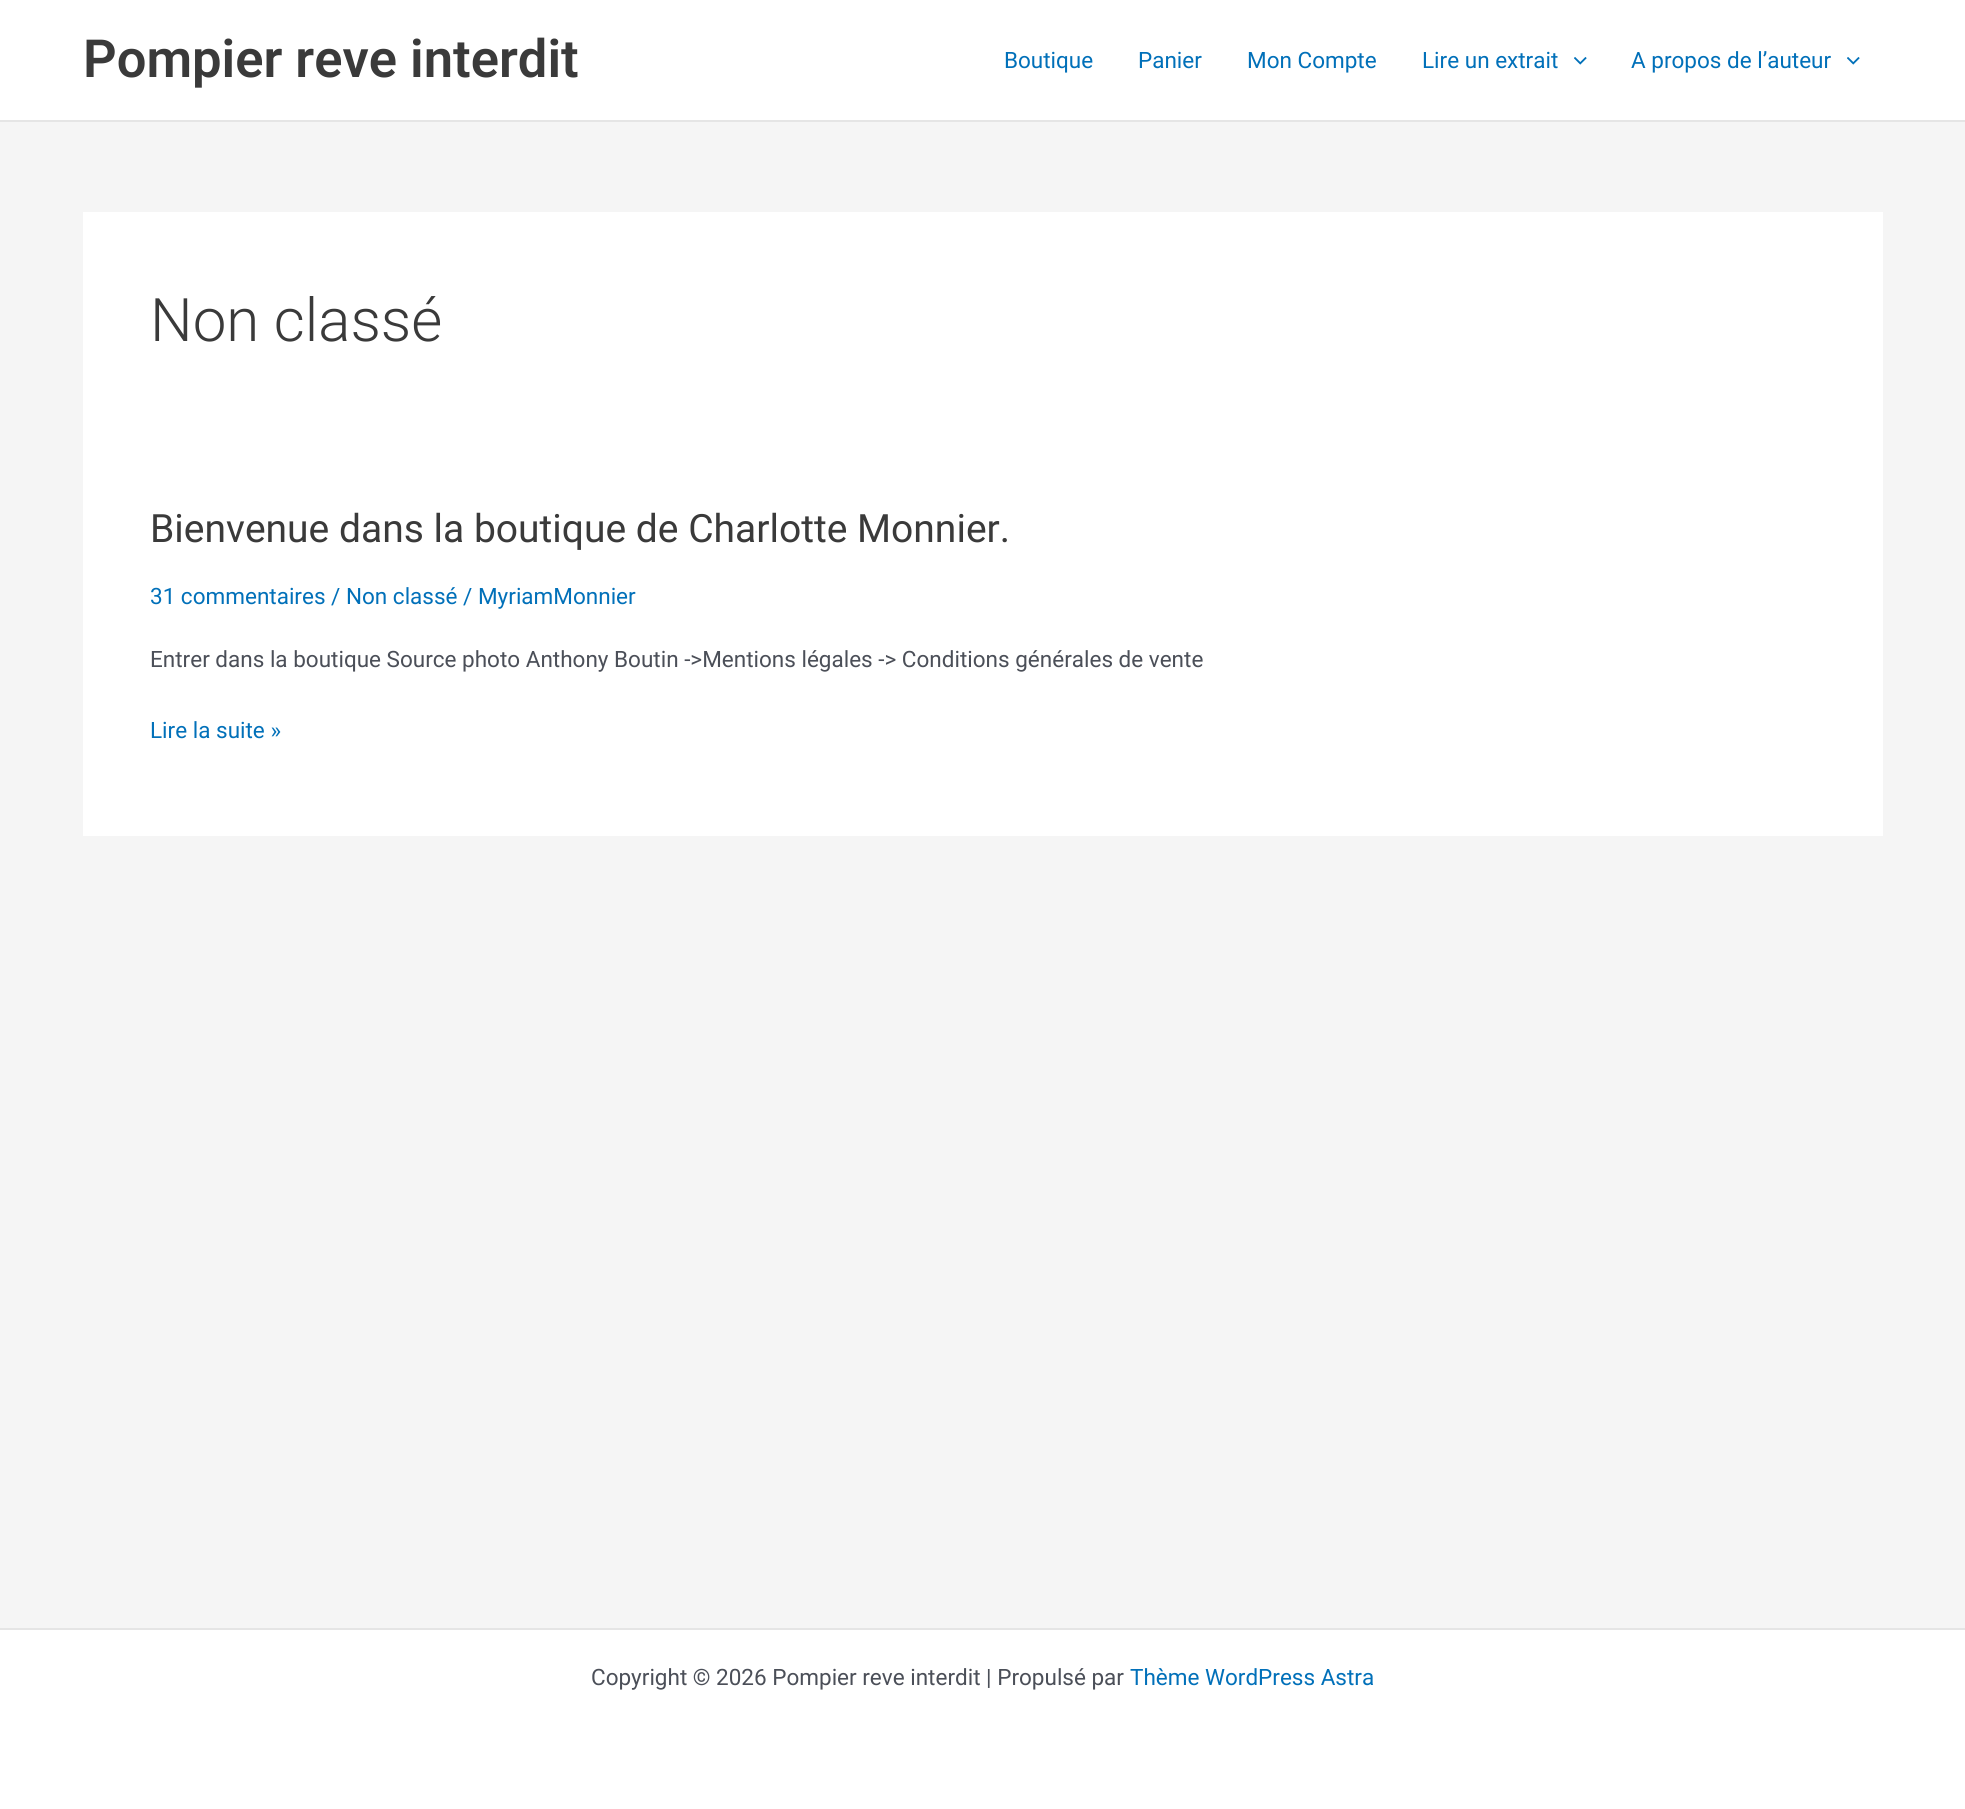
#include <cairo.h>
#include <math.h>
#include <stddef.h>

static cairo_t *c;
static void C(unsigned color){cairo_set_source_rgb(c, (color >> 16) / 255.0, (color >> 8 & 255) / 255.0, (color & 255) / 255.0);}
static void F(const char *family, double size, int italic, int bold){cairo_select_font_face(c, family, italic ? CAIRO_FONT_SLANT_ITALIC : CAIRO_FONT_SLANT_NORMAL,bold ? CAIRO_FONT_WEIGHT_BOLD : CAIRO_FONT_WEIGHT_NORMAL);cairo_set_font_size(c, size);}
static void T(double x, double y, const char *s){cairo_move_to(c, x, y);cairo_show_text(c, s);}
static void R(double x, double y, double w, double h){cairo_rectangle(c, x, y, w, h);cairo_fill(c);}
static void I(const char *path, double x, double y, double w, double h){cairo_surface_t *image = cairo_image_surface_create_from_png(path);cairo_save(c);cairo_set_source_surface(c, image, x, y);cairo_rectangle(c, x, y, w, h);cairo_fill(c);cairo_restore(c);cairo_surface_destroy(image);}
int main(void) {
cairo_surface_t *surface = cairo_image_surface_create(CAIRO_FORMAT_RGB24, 1965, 1809);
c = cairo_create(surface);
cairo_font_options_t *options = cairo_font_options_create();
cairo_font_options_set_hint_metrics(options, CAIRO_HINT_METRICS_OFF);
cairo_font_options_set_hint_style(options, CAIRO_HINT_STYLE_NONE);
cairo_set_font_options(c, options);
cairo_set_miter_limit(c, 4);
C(0xf5f5f5);
cairo_paint(c);
C(0xffffff);
R(0,0,1965,120);
C(0xe5e5e5);
R(0,120,1965,2);
F("Roboto SemiBold",52.5,0,0);
C(0x3a3a3a);
T(83,77,"Pompier reve interdit");
F("Roboto",22.5,0,0);
C(0x0170b9);
T(1004,68,"Boutique");
T(1138,68,"Panier");
T(1247,68,"Mon Compte");
T(1422,68,"Lire un extrait");
I("1.png",1574,57,13,8);
T(1631,68,"A propos de l’auteur");
I("1.png",1847,57,13,8);
C(0xffffff);
R(83,212,1800,624);
F("Roboto Light",60,0,0);
C(0x3a3a3a);
T(150,341,"Non classé");
F("Roboto",39,0,0);
T(150,542,"Bienvenue dans la boutique de Charlotte Monnier.");
F("Roboto",22.5,0,0);
C(0x0170b9);
T(150,604,"31 commentaires / Non classé / MyriamMonnier");
C(0x4b4f58);
T(150,667,"Entrer dans la boutique Source photo Anthony Boutin ->Mentions légales -> Conditions générales de vente");
C(0x0170b9);
T(150,738,"Lire la suite »");
C(0xffffff);
R(0,1630,1965,179);
C(0xe5e5e5);
R(0,1628,1965,2);
C(0x4b4f58);
T(591,1685,"Copyright © 2026 Pompier reve interdit | Propulsé par");
C(0x0170b9);
T(1130,1685,"Thème WordPress Astra");
cairo_surface_write_to_png(surface, "o.png");
cairo_font_options_destroy(options);
cairo_destroy(c);
cairo_surface_destroy(surface);
return 0;
}
